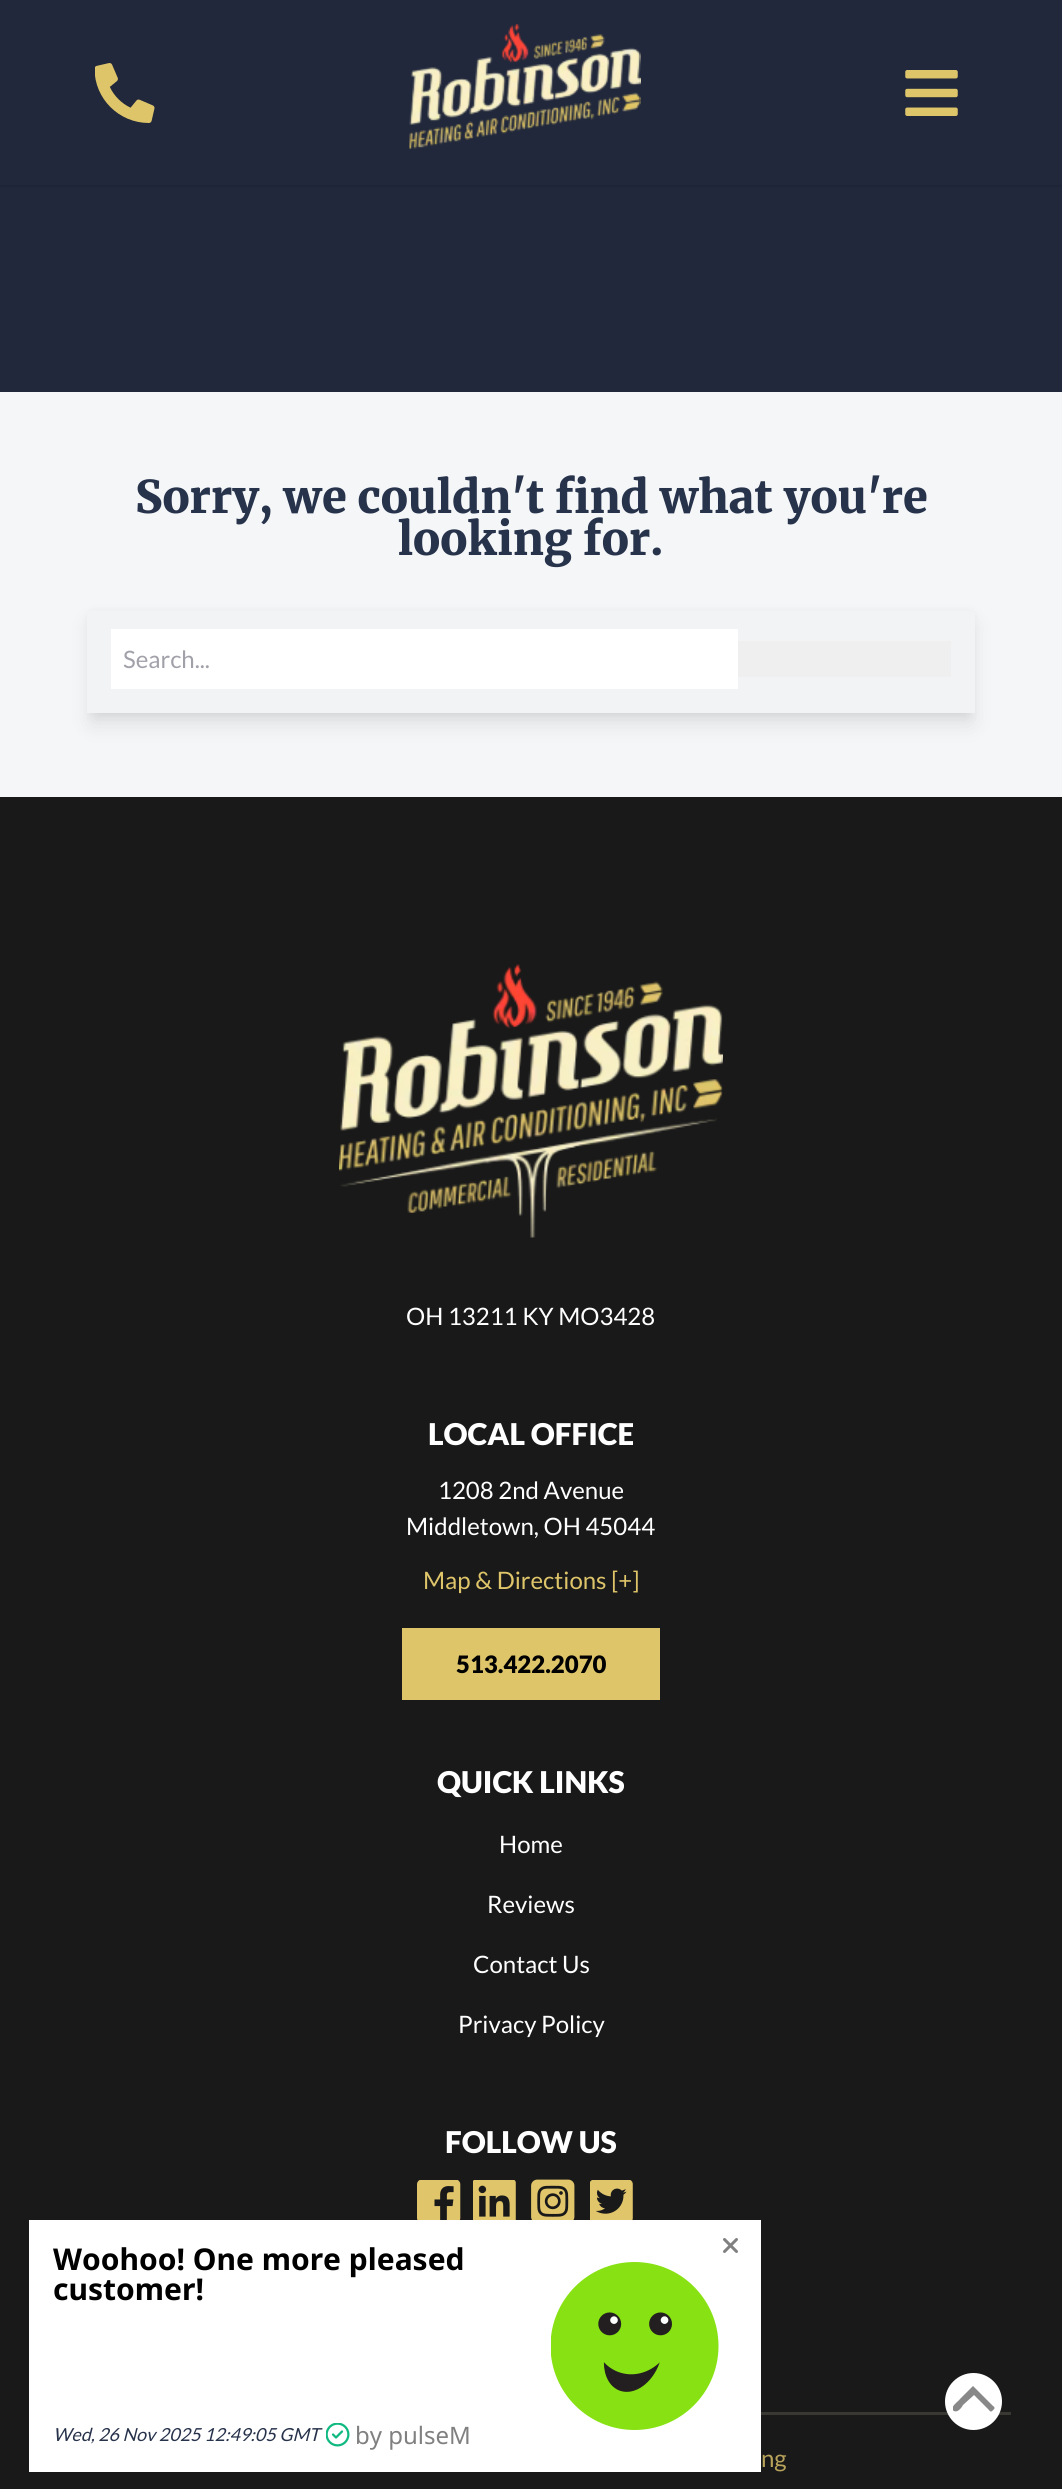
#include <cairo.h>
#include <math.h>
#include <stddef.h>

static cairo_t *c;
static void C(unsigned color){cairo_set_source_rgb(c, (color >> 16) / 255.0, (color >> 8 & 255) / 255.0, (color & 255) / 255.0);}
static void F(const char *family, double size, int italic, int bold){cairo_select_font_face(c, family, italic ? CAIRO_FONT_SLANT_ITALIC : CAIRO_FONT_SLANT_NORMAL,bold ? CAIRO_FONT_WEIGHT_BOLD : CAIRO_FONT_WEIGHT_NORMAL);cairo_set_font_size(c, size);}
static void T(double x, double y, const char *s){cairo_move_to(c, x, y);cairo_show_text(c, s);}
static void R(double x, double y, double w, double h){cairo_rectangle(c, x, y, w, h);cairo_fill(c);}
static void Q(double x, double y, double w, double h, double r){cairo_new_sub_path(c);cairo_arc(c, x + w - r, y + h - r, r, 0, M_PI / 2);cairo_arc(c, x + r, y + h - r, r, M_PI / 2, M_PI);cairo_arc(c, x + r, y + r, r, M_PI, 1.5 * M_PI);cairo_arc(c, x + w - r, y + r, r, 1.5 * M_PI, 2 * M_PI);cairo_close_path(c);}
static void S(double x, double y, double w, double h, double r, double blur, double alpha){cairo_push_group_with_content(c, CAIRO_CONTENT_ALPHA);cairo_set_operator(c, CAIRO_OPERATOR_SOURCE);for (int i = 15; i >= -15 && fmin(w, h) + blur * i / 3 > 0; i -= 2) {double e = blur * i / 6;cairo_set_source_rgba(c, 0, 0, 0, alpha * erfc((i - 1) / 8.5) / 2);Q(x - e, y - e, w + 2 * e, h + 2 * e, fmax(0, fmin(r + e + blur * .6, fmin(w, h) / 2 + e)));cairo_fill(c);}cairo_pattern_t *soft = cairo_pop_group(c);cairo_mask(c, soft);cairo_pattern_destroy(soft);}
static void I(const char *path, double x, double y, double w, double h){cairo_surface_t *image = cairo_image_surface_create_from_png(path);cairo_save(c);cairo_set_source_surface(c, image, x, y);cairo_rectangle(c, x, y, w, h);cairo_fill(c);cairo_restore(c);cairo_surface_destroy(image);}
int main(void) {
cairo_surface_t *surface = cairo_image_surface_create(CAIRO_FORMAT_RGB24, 1062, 2489);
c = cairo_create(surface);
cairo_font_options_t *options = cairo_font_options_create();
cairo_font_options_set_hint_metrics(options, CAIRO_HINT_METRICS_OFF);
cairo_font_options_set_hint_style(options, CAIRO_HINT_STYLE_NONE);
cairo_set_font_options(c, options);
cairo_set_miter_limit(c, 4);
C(0xf4f6f8);
cairo_paint(c);
C(0x21283b);
R(0,185,1062,207);
C(0x000000);
S(0,2,1062,184,0,1.5,.06);
S(0,2,1062,184,0,2,.1);
C(0x21283b);
R(0,0,1062,185);
I("1.png",95,63,60,60);
I("2.png",409,24,232,126);
I("3.png",905,70,53,46);
F("Merriweather Light",45,0,0);
C(0x27324b);
T(135,513,"Sorry, we couldn't find what you're");
T(398,555,"looking for.");
C(0x000000);
S(90,614,882,102,0,4.5,.05);
S(92,624,879,99,0,11,.1);
C(0xf1f3f5);
R(87,611,888,102);
C(0xffffff);
R(111,629,627,60);
F("Lato",24,0,0);
C(0xa1a1aa);
T(123,668,"Search...");
C(0xefefef);
R(738,641,213,36);
C(0x191919);
R(0,797,1062,1692);
C(0x3a3832);
R(761,2412,250,3);
C(0xffffff);
cairo_new_path(c);
cairo_arc(c,973.5,2401.5,28.5,0,2 * M_PI);
cairo_fill(c);
cairo_save(c);
cairo_rectangle(c,953,2378,42,42);
cairo_clip(c);
C(0x888888);
cairo_new_path(c);
cairo_move_to(c,993,2410);
cairo_curve_to(c,992,2412,990,2412,989,2410);
cairo_line_to(c,974,2395);
cairo_line_to(c,963,2405);
cairo_curve_to(c,962,2407,958,2413,954,2411);
cairo_curve_to(c,948,2408,959,2401,960,2399);
cairo_line_to(c,973,2386);
cairo_line_to(c,993,2406);
cairo_curve_to(c,995,2407,995,2409,993,2410);
cairo_close_path(c);
cairo_fill(c);
cairo_restore(c);
R(29,2220,732,252);
I("4.png",723,2238,15,15);
F("Noto Sans",30,0,1);
C(0x000000);
T(53,2270,"Woohoo! One more pleased");
T(53,2300,"customer!");
F("Lato",18,1,0);
C(0x27324b);
T(53,2441,"Wed, 26 Nov 2025 12:49:05 GMT");
I("5.png",326,2423,24,24);
F("Noto Sans",24,0,0);
C(0x808080);
T(355,2444,"by pulseM");
I("6.png",551,2262,168,168);
I("7.png",339,964,384,274);
F("Lato",24,0,0);
C(0xffffff);
T(406,1325,"OH 13211 KY MO3428");
F("Lato Black",30,0,0);
T(428,1445,"LOCAL OFFICE");
F("Lato",24,0,0);
T(438,1499,"1208 2nd Avenue");
T(406,1535,"Middletown, OH 45044");
C(0xdfc56a);
T(423,1589,"Map & Directions [+]");
R(402,1628,258,72);
F("Lato Black",24,0,0);
C(0x000000);
T(456,1673,"513.422.2070");
F("Lato Black",30,0,0);
C(0xffffff);
T(437,1793,"QUICK LINKS");
F("Lato",24,0,0);
T(499,1853,"Home");
T(487,1913,"Reviews");
T(473,1973,"Contact Us");
T(458,2033,"Privacy Policy");
F("Lato Black",30,0,0);
T(445,2153,"FOLLOW US");
I("8.png",417,2180,44,40);
I("9.png",473,2180,43,40);
I("10.png",531,2179,44,41);
I("11.png",590,2180,43,40);
F("Lato",24,0,0);
C(0xb8a35b);
T(761,2467,"ng");
cairo_surface_write_to_png(surface, "o.png");
cairo_font_options_destroy(options);
cairo_destroy(c);
cairo_surface_destroy(surface);
return 0;
}
